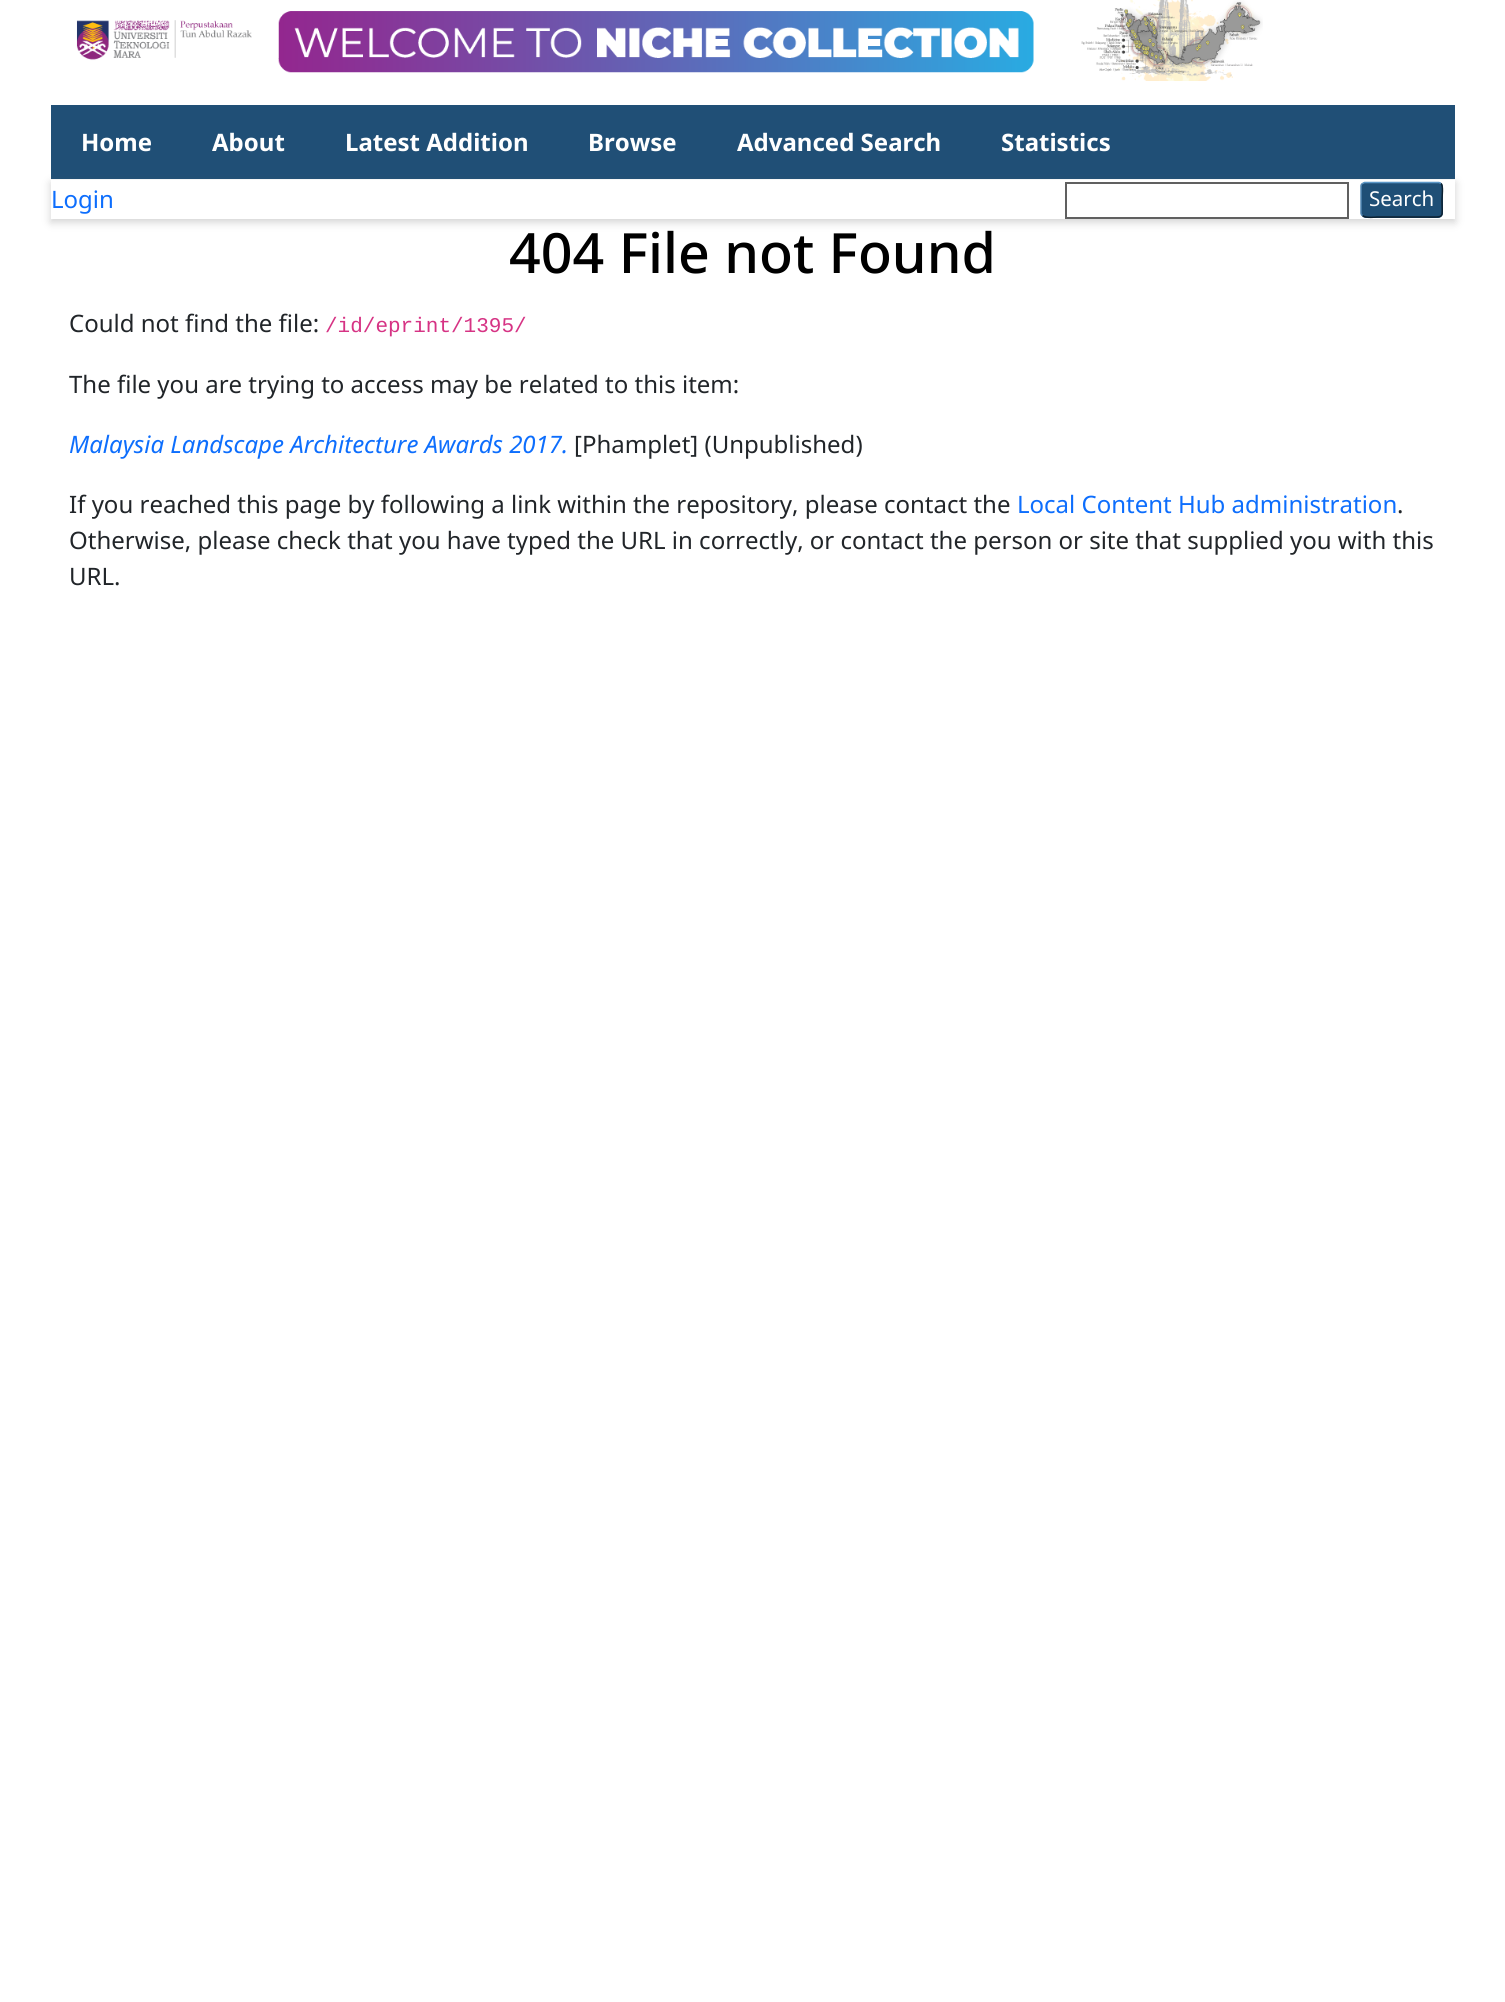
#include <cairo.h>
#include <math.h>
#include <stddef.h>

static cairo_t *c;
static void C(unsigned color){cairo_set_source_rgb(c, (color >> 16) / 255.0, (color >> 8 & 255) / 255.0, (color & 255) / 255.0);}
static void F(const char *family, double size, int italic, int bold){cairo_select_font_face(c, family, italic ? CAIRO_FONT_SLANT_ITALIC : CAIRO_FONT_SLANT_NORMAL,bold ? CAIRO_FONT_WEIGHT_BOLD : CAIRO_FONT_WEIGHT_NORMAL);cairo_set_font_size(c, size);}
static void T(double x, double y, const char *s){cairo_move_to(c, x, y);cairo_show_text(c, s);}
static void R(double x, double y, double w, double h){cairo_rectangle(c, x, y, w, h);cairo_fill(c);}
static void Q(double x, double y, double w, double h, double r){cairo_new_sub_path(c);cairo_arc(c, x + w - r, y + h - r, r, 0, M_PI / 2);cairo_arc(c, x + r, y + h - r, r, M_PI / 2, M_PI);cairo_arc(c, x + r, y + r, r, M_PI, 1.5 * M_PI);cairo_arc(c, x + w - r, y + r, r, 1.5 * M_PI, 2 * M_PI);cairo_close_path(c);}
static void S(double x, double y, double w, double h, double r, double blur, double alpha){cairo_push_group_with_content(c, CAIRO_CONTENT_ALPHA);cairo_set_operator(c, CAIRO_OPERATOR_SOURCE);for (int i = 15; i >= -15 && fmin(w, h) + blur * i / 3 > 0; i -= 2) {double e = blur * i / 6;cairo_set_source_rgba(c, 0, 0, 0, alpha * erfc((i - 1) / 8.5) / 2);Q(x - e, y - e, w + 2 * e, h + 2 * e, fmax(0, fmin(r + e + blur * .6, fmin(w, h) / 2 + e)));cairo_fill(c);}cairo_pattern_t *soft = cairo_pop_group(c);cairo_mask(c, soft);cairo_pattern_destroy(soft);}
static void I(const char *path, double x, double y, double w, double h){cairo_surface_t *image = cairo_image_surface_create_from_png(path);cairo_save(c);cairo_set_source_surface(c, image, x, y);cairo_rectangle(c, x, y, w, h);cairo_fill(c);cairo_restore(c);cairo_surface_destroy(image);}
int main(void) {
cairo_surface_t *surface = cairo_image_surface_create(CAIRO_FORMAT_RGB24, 1505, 2002);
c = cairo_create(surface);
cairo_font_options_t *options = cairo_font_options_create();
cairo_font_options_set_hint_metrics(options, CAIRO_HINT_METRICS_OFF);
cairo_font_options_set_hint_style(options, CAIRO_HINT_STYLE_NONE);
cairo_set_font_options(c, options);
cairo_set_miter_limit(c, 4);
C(0xffffff);
cairo_paint(c);
I("1.png",76,0,1187,81);
C(0x204f76);
R(51,105,1404,74);
F("Noto Sans",24,0,1);
C(0xffffff);
T(81,151,"Home");
T(212,151,"About");
T(345,151,"Latest Addition");
T(588,151,"Browse");
T(737,151,"Advanced Search");
T(1001,151,"Statistics");
C(0x646464);
S(51,183,1404,39,0,4.5,.3);
C(0xffffff);
R(51,180,1404,39);
F("Noto Sans",24,0,0);
C(0x0d6efd);
T(51,208,"Login");
cairo_rectangle(c,1066,183,282,35);
C(0x606060);
cairo_stroke(c);
C(0x1f4f76);
Q(1361,182,82,36,5);
cairo_fill(c);
cairo_new_path(c);
cairo_move_to(c,1362.5,183.5);
cairo_line_to(c,1364.5,182.5);
cairo_line_to(c,1439,182.5);
cairo_line_to(c,1441,183.5);
C(0x5b97c7);
cairo_set_line_width(c,1.5);
cairo_stroke(c);
cairo_new_path(c);
cairo_move_to(c,1441,183.5);
cairo_curve_to(c,1443.5,185.5,1442,196.5,1442,199.5);
cairo_curve_to(c,1442,219,1445.5,217,1426,217);
cairo_line_to(c,1377,217);
cairo_curve_to(c,1377,217,1365.5,218.5,1362.5,215.5);
C(0x0d2131);
cairo_stroke(c);
cairo_new_path(c);
cairo_move_to(c,1362.5,215.5);
cairo_curve_to(c,1361.5,215,1361,214,1361,213);
cairo_line_to(c,1361,186);
cairo_curve_to(c,1361,185,1361.5,184,1362.5,183.5);
C(0x5287b3);
cairo_stroke(c);
F("Noto Sans",20.5,0,0);
C(0xffffff);
T(1369,206,"Search");
F("Noto Sans Medium",55.5,0,0);
C(0x000000);
T(509,273,"404 File not Found");
F("Noto Sans",24,0,0);
C(0x212529);
T(69,332,"Could not find the file:");
F("Liberation Mono",21,0,0);
C(0xd63384);
T(325,332,"/id/eprint/1395/");
F("Noto Sans",24,0,0);
C(0x212529);
T(69,393,"The file you are trying to access may be related to this item:");
F("Noto Sans",24,1,0);
C(0x0d6efd);
T(69,453,"Malaysia Landscape Architecture Awards 2017.");
F("Noto Sans",24,0,0);
C(0x212529);
T(574,453,"[Phamplet] (Unpublished)");
T(69,513,"If you reached this page by following a link within the repository, please contact the");
C(0x0d6efd);
T(1017,513,"Local Content Hub administration");
C(0x212529);
T(1397,513,".");
T(69,549,"Otherwise, please check that you have typed the URL in correctly, or contact the person or site that supplied you with this");
T(69,585,"URL.");
cairo_surface_write_to_png(surface, "o.png");
cairo_font_options_destroy(options);
cairo_destroy(c);
cairo_surface_destroy(surface);
return 0;
}
